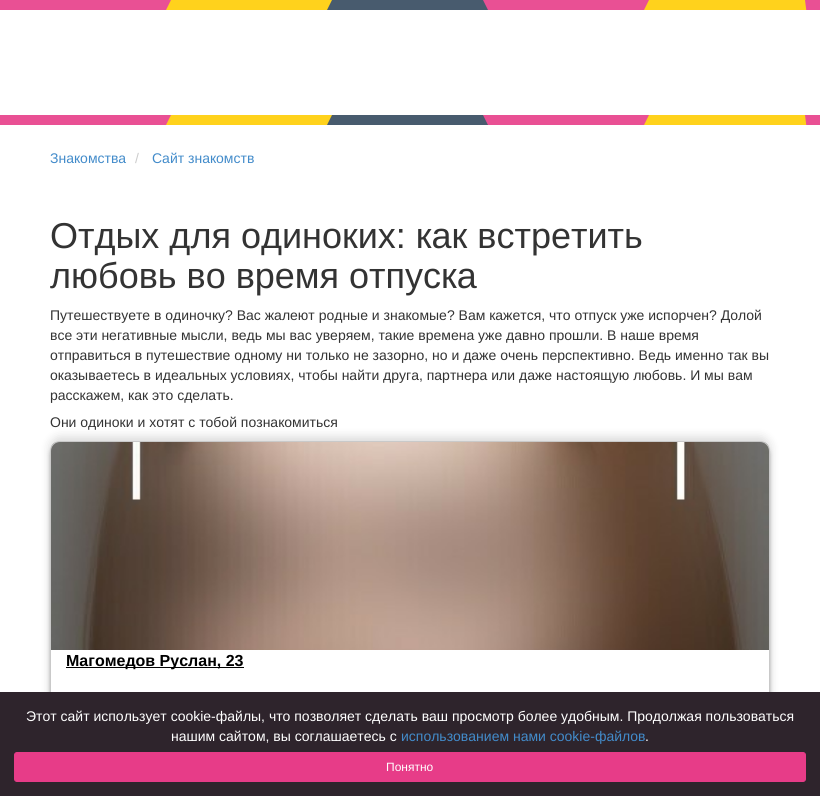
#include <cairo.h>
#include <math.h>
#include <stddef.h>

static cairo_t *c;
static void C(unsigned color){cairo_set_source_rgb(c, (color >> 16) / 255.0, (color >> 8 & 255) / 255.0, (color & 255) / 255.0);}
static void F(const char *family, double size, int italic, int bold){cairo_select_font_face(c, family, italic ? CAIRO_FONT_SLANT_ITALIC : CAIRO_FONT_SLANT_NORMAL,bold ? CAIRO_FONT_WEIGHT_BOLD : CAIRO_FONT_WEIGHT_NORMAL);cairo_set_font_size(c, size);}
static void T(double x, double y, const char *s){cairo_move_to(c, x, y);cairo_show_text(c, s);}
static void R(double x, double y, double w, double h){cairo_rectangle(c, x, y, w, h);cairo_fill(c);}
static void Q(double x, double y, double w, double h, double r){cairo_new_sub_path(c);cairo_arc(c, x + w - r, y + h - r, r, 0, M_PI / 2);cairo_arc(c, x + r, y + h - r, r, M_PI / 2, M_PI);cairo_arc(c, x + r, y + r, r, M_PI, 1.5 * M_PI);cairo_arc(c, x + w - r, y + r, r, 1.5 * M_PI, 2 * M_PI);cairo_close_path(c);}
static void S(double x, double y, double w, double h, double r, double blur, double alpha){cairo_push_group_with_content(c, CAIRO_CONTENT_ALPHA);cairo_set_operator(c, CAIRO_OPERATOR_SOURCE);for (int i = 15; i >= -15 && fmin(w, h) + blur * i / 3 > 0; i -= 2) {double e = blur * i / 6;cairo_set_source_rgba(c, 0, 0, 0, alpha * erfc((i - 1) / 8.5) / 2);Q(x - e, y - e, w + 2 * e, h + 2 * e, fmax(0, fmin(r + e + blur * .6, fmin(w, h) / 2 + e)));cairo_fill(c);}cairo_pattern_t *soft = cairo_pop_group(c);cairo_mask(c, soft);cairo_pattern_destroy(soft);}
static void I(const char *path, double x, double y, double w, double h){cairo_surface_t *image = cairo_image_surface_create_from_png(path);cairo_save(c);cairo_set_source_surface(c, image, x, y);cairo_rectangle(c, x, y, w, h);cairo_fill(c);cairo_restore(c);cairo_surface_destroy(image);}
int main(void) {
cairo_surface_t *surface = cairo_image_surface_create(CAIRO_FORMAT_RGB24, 820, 796);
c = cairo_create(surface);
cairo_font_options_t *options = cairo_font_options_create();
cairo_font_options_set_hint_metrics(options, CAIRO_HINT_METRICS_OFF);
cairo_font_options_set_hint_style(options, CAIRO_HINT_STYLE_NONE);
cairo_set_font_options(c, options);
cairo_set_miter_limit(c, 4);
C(0xffffff);
cairo_paint(c);
C(0xffd21c);
R(166,0,641,10);
cairo_save(c);
cairo_rectangle(c,0,0,820,10);
cairo_clip(c);
C(0xe95094);
cairo_new_path(c);
cairo_move_to(c,-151,0);
cairo_line_to(c,15,0);
cairo_line_to(c,15,40);
cairo_line_to(c,-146,40);
cairo_close_path(c);
cairo_fill(c);
cairo_restore(c);
C(0xe95094);
cairo_new_path(c);
cairo_move_to(c,5,0);
cairo_line_to(c,171,0);
cairo_line_to(c,166,10);
cairo_line_to(c,10,10);
cairo_close_path(c);
cairo_fill(c);
C(0x485b6e);
cairo_new_path(c);
cairo_move_to(c,493,10);
cairo_line_to(c,327,10);
cairo_line_to(c,332,0);
cairo_line_to(c,488,0);
cairo_close_path(c);
cairo_fill(c);
C(0xe95094);
cairo_new_path(c);
cairo_move_to(c,483,0);
cairo_line_to(c,649,0);
cairo_line_to(c,644,10);
cairo_line_to(c,488,10);
cairo_close_path(c);
cairo_fill(c);
cairo_save(c);
cairo_rectangle(c,0,0,820,10);
cairo_clip(c);
cairo_new_path(c);
cairo_move_to(c,805,0);
cairo_line_to(c,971,0);
cairo_line_to(c,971,40);
cairo_line_to(c,810,40);
cairo_close_path(c);
cairo_fill(c);
cairo_restore(c);
C(0xffd21c);
R(166,115,641,10);
cairo_save(c);
cairo_rectangle(c,0,115,820,10);
cairo_clip(c);
C(0xe95094);
cairo_new_path(c);
cairo_move_to(c,-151,115);
cairo_line_to(c,15,115);
cairo_line_to(c,15,155);
cairo_line_to(c,-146,155);
cairo_close_path(c);
cairo_fill(c);
cairo_restore(c);
C(0xe95094);
cairo_new_path(c);
cairo_move_to(c,5,115);
cairo_line_to(c,171,115);
cairo_line_to(c,166,125);
cairo_line_to(c,10,125);
cairo_close_path(c);
cairo_fill(c);
C(0x485b6e);
cairo_new_path(c);
cairo_move_to(c,493,125);
cairo_line_to(c,327,125);
cairo_line_to(c,332,115);
cairo_line_to(c,488,115);
cairo_close_path(c);
cairo_fill(c);
C(0xe95094);
cairo_new_path(c);
cairo_move_to(c,483,115);
cairo_line_to(c,649,115);
cairo_line_to(c,644,125);
cairo_line_to(c,488,125);
cairo_close_path(c);
cairo_fill(c);
cairo_save(c);
cairo_rectangle(c,0,115,820,10);
cairo_clip(c);
cairo_new_path(c);
cairo_move_to(c,805,115);
cairo_line_to(c,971,115);
cairo_line_to(c,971,155);
cairo_line_to(c,810,155);
cairo_close_path(c);
cairo_fill(c);
cairo_restore(c);
F("Liberation Sans",14,0,0);
C(0x428bca);
T(50,163,"Знакомства");
C(0xcccccc);
T(135,163,"/");
C(0x428bca);
T(152,163,"Сайт знакомств");
F("Liberation Sans",36,0,0);
C(0x333333);
T(50,248,"Отдых для одиноких: как встретить");
T(50,288,"любовь во время отпуска");
F("Liberation Sans",14,0,0);
T(50,320,"Путешествуете в одиночку? Вас жалеют родные и знакомые? Вам кажется, что отпуск уже испорчен? Долой");
T(50,340,"все эти негативные мысли, ведь мы вас уверяем, такие времена уже давно прошли. В наше время");
T(50,360,"отправиться в путешествие одному ни только не зазорно, но и даже очень перспективно. Ведь именно так вы");
T(50,380,"оказываетесь в идеальных условиях, чтобы найти друга, партнера или даже настоящую любовь. И мы вам");
T(50,400,"расскажем, как это сделать.");
T(50,427,"Они одиноки и хотят с тобой познакомиться");
C(0x000000);
S(50,445,720,270,10,2,.25);
S(50,437,720,270,10,5,.15);
I("1.png",51,442,718,208);
Q(50.5,441.5,719,269,9.5);
C(0xc9c9c9);
cairo_set_line_width(c,1);
cairo_stroke(c);
C(0xffffff);
R(51,650,718,42);
C(0x000000);
R(66,667,178,1);
F("Liberation Sans",16,0,1);
T(66,666,"Магомедов Руслан, 23");
C(0x2e242c);
R(0,692,820,104);
F("Liberation Sans",14,0,0);
C(0xffffff);
T(26,721,"Этот сайт использует cookie-файлы, что позволяет сделать ваш просмотр более удобным. Продолжая пользоваться");
T(171,741,"нашим сайтом, вы соглашаетесь с");
C(0x428bca);
T(401,741,"использованием нами cookie-файлов");
C(0xffffff);
T(645,741,".");
C(0xe73c88);
Q(14.5,752.5,791,29,2.5);
cairo_fill_preserve(c);
cairo_stroke(c);
F("Liberation Sans",12,0,0);
C(0xffffff);
T(386,771,"Понятно");
cairo_surface_write_to_png(surface, "o.png");
cairo_font_options_destroy(options);
cairo_destroy(c);
cairo_surface_destroy(surface);
return 0;
}
